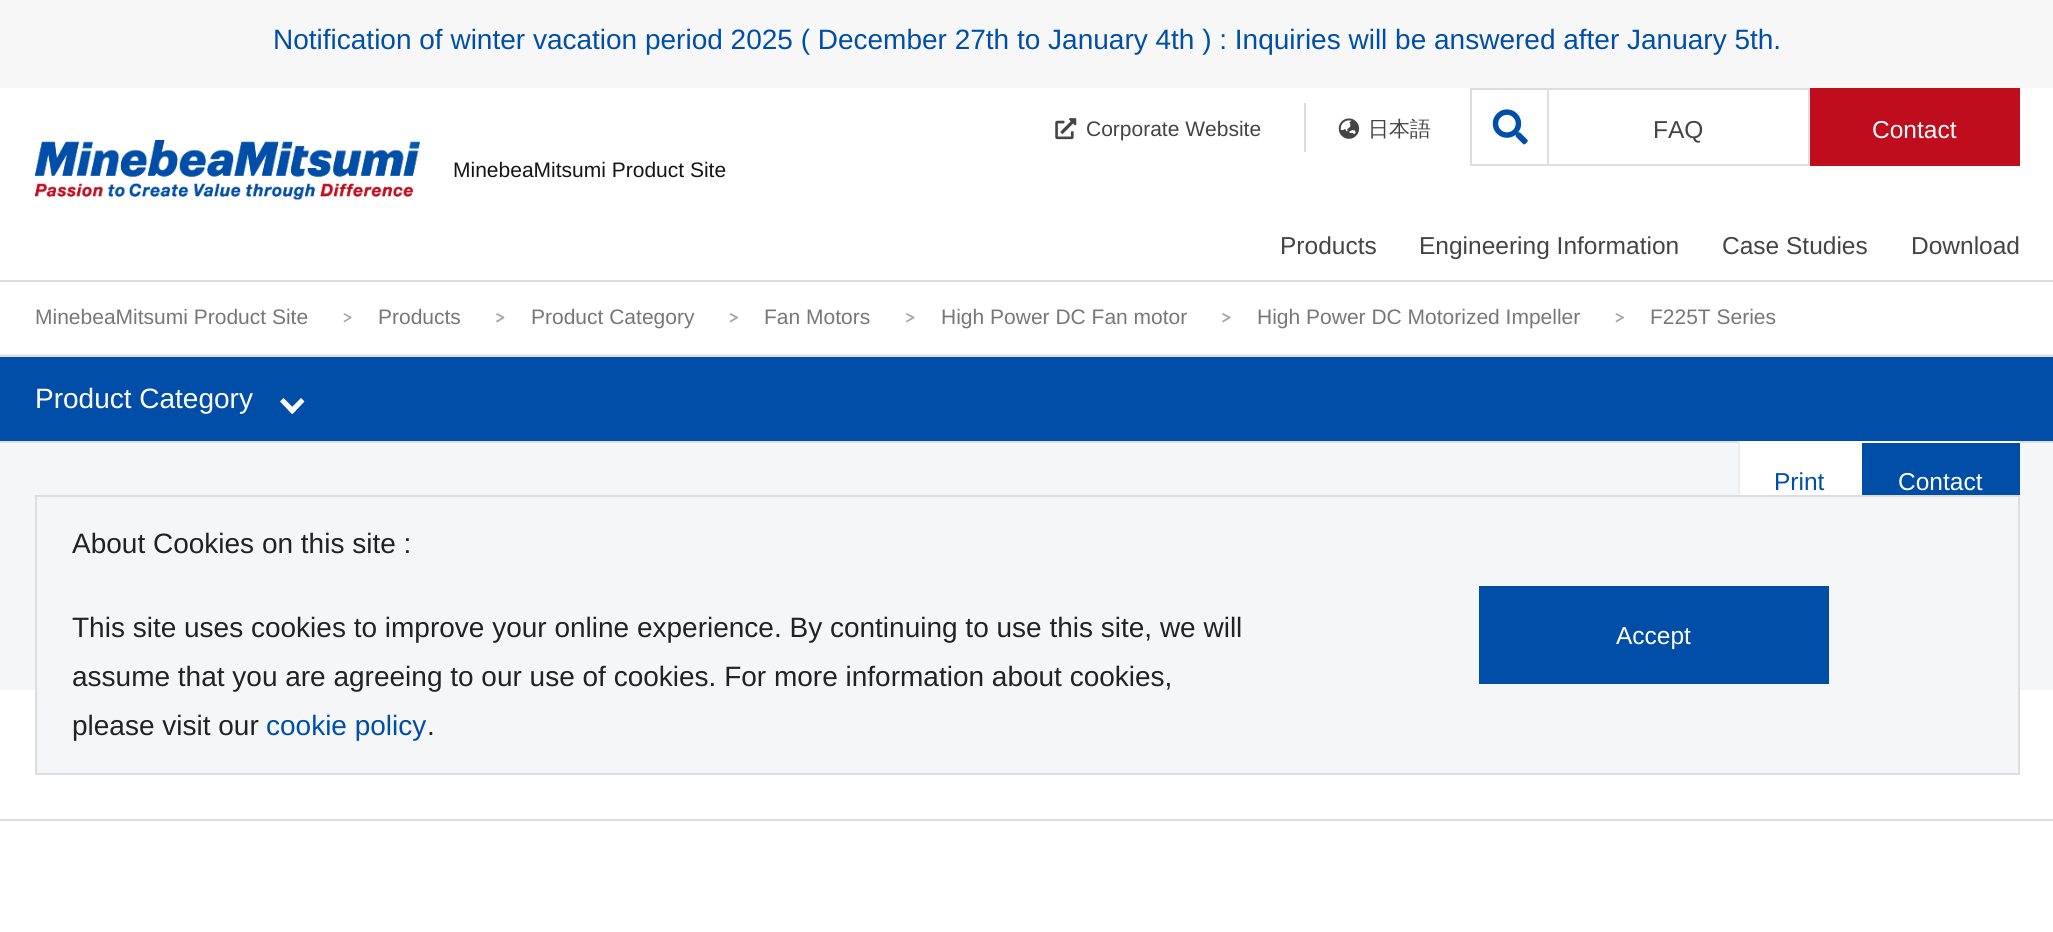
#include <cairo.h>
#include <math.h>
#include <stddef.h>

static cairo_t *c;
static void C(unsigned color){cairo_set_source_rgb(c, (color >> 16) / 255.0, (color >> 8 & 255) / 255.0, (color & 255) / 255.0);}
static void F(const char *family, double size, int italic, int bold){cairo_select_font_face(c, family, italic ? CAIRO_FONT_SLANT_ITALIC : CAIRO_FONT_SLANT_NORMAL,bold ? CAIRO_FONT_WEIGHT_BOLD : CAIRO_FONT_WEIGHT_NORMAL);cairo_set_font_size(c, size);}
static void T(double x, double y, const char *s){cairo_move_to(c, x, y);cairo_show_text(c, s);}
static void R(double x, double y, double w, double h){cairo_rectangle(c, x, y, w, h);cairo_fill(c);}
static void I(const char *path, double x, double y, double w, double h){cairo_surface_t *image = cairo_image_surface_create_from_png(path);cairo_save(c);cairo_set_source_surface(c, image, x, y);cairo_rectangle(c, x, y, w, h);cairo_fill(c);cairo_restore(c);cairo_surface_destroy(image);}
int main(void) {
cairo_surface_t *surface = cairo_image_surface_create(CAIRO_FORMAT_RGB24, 2053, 932);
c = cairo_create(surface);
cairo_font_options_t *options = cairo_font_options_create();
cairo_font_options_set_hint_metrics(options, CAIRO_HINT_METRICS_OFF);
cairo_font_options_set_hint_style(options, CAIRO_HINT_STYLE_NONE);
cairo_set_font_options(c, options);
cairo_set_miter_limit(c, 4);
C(0xffffff);
cairo_paint(c);
C(0xf7f7f7);
R(0,0,2053,88);
F("Liberation Sans",28,0,0);
C(0x004ea8);
T(273,49,"Notification of winter vacation period 2025 ( December 27th to January 4th ) : Inquiries will be answered after January 5th.");
C(0xdddddd);
R(0,280,2053,2);
cairo_rectangle(c,1471,89,77,76);
cairo_stroke(c);
I("1.png",1492,109,36,36);
I("2.png",35,139,385,61);
F("Liberation Sans",21,0,0);
C(0x151515);
T(453,177,"MinebeaMitsumi Product Site");
I("3.png",1055,118,22,22);
C(0x444444);
T(1086,136,"Corporate Website");
C(0xdddddd);
R(1304,103,2,49);
I("4.png",1338,118,22,21);
F("WenQuanYi Zen Hei Medium",21,0,0);
C(0x444444);
T(1368,136,"日本語");
C(0xc00d1e);
R(1810,88,210,78);
F("Liberation Sans",24.5,0,0);
C(0xffffff);
T(1872,138,"Contact");
cairo_rectangle(c,1548,89,261,76);
C(0xdfdfdf);
cairo_stroke(c);
C(0x444444);
T(1653,138,"FAQ");
T(1280,254,"Products");
T(1419,254,"Engineering Information");
T(1722,254,"Case Studies");
T(1911,254,"Download");
C(0xf0f0f0);
R(0,354,2053,1);
F("Liberation Sans",21,0,0);
C(0x777777);
T(35,324,"MinebeaMitsumi Product Site");
C(0xa5a5a5);
cairo_new_path(c);
cairo_move_to(c,344,313);
cairo_line_to(c,351.5,317);
cairo_line_to(c,351,318.5);
cairo_line_to(c,343.5,314.5);
cairo_close_path(c);
cairo_fill(c);
cairo_new_path(c);
cairo_move_to(c,343.5,321);
cairo_line_to(c,351,316.5);
cairo_line_to(c,351.5,318);
cairo_line_to(c,344,322.5);
cairo_close_path(c);
cairo_fill(c);
C(0x777777);
T(378,324,"Products");
C(0xa5a5a5);
cairo_new_path(c);
cairo_move_to(c,497,313);
cairo_line_to(c,504.5,317);
cairo_line_to(c,503.5,318.5);
cairo_line_to(c,496,314.5);
cairo_close_path(c);
cairo_fill(c);
cairo_new_path(c);
cairo_move_to(c,496,321);
cairo_line_to(c,503.5,316.5);
cairo_line_to(c,504.5,318);
cairo_line_to(c,497,322.5);
cairo_close_path(c);
cairo_fill(c);
C(0x777777);
T(531,324,"Product Category");
C(0xa5a5a5);
cairo_new_path(c);
cairo_move_to(c,730.5,313);
cairo_line_to(c,738,317);
cairo_line_to(c,737,318.5);
cairo_line_to(c,729.5,314.5);
cairo_close_path(c);
cairo_fill(c);
cairo_new_path(c);
cairo_move_to(c,729.5,321);
cairo_line_to(c,737,316.5);
cairo_line_to(c,738,318);
cairo_line_to(c,730.5,322.5);
cairo_close_path(c);
cairo_fill(c);
C(0x777777);
T(764,324,"Fan Motors");
C(0xa5a5a5);
cairo_new_path(c);
cairo_move_to(c,906.5,313);
cairo_line_to(c,914.5,317);
cairo_line_to(c,913.5,318.5);
cairo_line_to(c,906,314.5);
cairo_close_path(c);
cairo_fill(c);
cairo_new_path(c);
cairo_move_to(c,906,321);
cairo_line_to(c,913.5,316.5);
cairo_line_to(c,914.5,318);
cairo_line_to(c,906.5,322.5);
cairo_close_path(c);
cairo_fill(c);
C(0x777777);
T(941,324,"High Power DC Fan motor");
C(0xa5a5a5);
cairo_new_path(c);
cairo_move_to(c,1223,313);
cairo_line_to(c,1230.5,317);
cairo_line_to(c,1229.5,318.5);
cairo_line_to(c,1222,314.5);
cairo_close_path(c);
cairo_fill(c);
cairo_new_path(c);
cairo_move_to(c,1222,321);
cairo_line_to(c,1229.5,316.5);
cairo_line_to(c,1230.5,318);
cairo_line_to(c,1223,322.5);
cairo_close_path(c);
cairo_fill(c);
C(0x777777);
T(1257,324,"High Power DC Motorized Impeller");
C(0xa5a5a5);
cairo_new_path(c);
cairo_move_to(c,1616,313);
cairo_line_to(c,1624,317);
cairo_line_to(c,1623,318.5);
cairo_line_to(c,1615.5,314.5);
cairo_close_path(c);
cairo_fill(c);
cairo_new_path(c);
cairo_move_to(c,1615.5,321);
cairo_line_to(c,1623,316.5);
cairo_line_to(c,1624,318);
cairo_line_to(c,1616,322.5);
cairo_close_path(c);
cairo_fill(c);
C(0x777777);
T(1650,324,"F225T Series");
C(0x004ea8);
R(0,357,2053,84);
C(0xdddddd);
R(0,355,2053,2);
R(0,441,2053,2);
F("Liberation Sans",28,0,0);
C(0xffffff);
T(35,408,"Product Category");
cairo_new_path(c);
cairo_move_to(c,288.5,410.5);
cairo_line_to(c,301,398);
cairo_line_to(c,304.5,401.5);
cairo_line_to(c,292.5,414);
cairo_close_path(c);
cairo_fill(c);
cairo_new_path(c);
cairo_move_to(c,283.5,398);
cairo_line_to(c,296,410.5);
cairo_line_to(c,292,414);
cairo_line_to(c,280,401.5);
cairo_close_path(c);
cairo_fill(c);
C(0xf4f6f7);
R(0,443,2053,247);
C(0xffffff);
R(1740,441,280,54);
C(0xededed);
R(1738,441,2,54);
F("Liberation Sans",24.5,0,0);
C(0x004ea8);
T(1774,490,"Print");
R(1862,443,158,52);
C(0xffffff);
T(1898,490,"Contact");
C(0xdddddd);
R(0,819,2053,2);
C(0xf4f6f7);
R(37,690,1981,83);
cairo_rectangle(c,36,496,1983,278);
C(0xdddddd);
cairo_stroke(c);
F("Liberation Sans",28,0,0);
C(0x222222);
T(72,553,"About Cookies on this site :");
T(72,637,"This site uses cookies to improve your online experience. By continuing to use this site, we will");
T(72,686,"assume that you are agreeing to our use of cookies. For more information about cookies,");
T(72,735,"please visit our");
C(0x004ea8);
T(266,735,"cookie policy");
C(0x222222);
T(427,735,".");
C(0x004ea8);
R(1479,586,350,98);
F("Liberation Sans",24.5,0,0);
C(0xffffff);
T(1616,644,"Accept");
cairo_surface_write_to_png(surface, "o.png");
cairo_font_options_destroy(options);
cairo_destroy(c);
cairo_surface_destroy(surface);
return 0;
}
